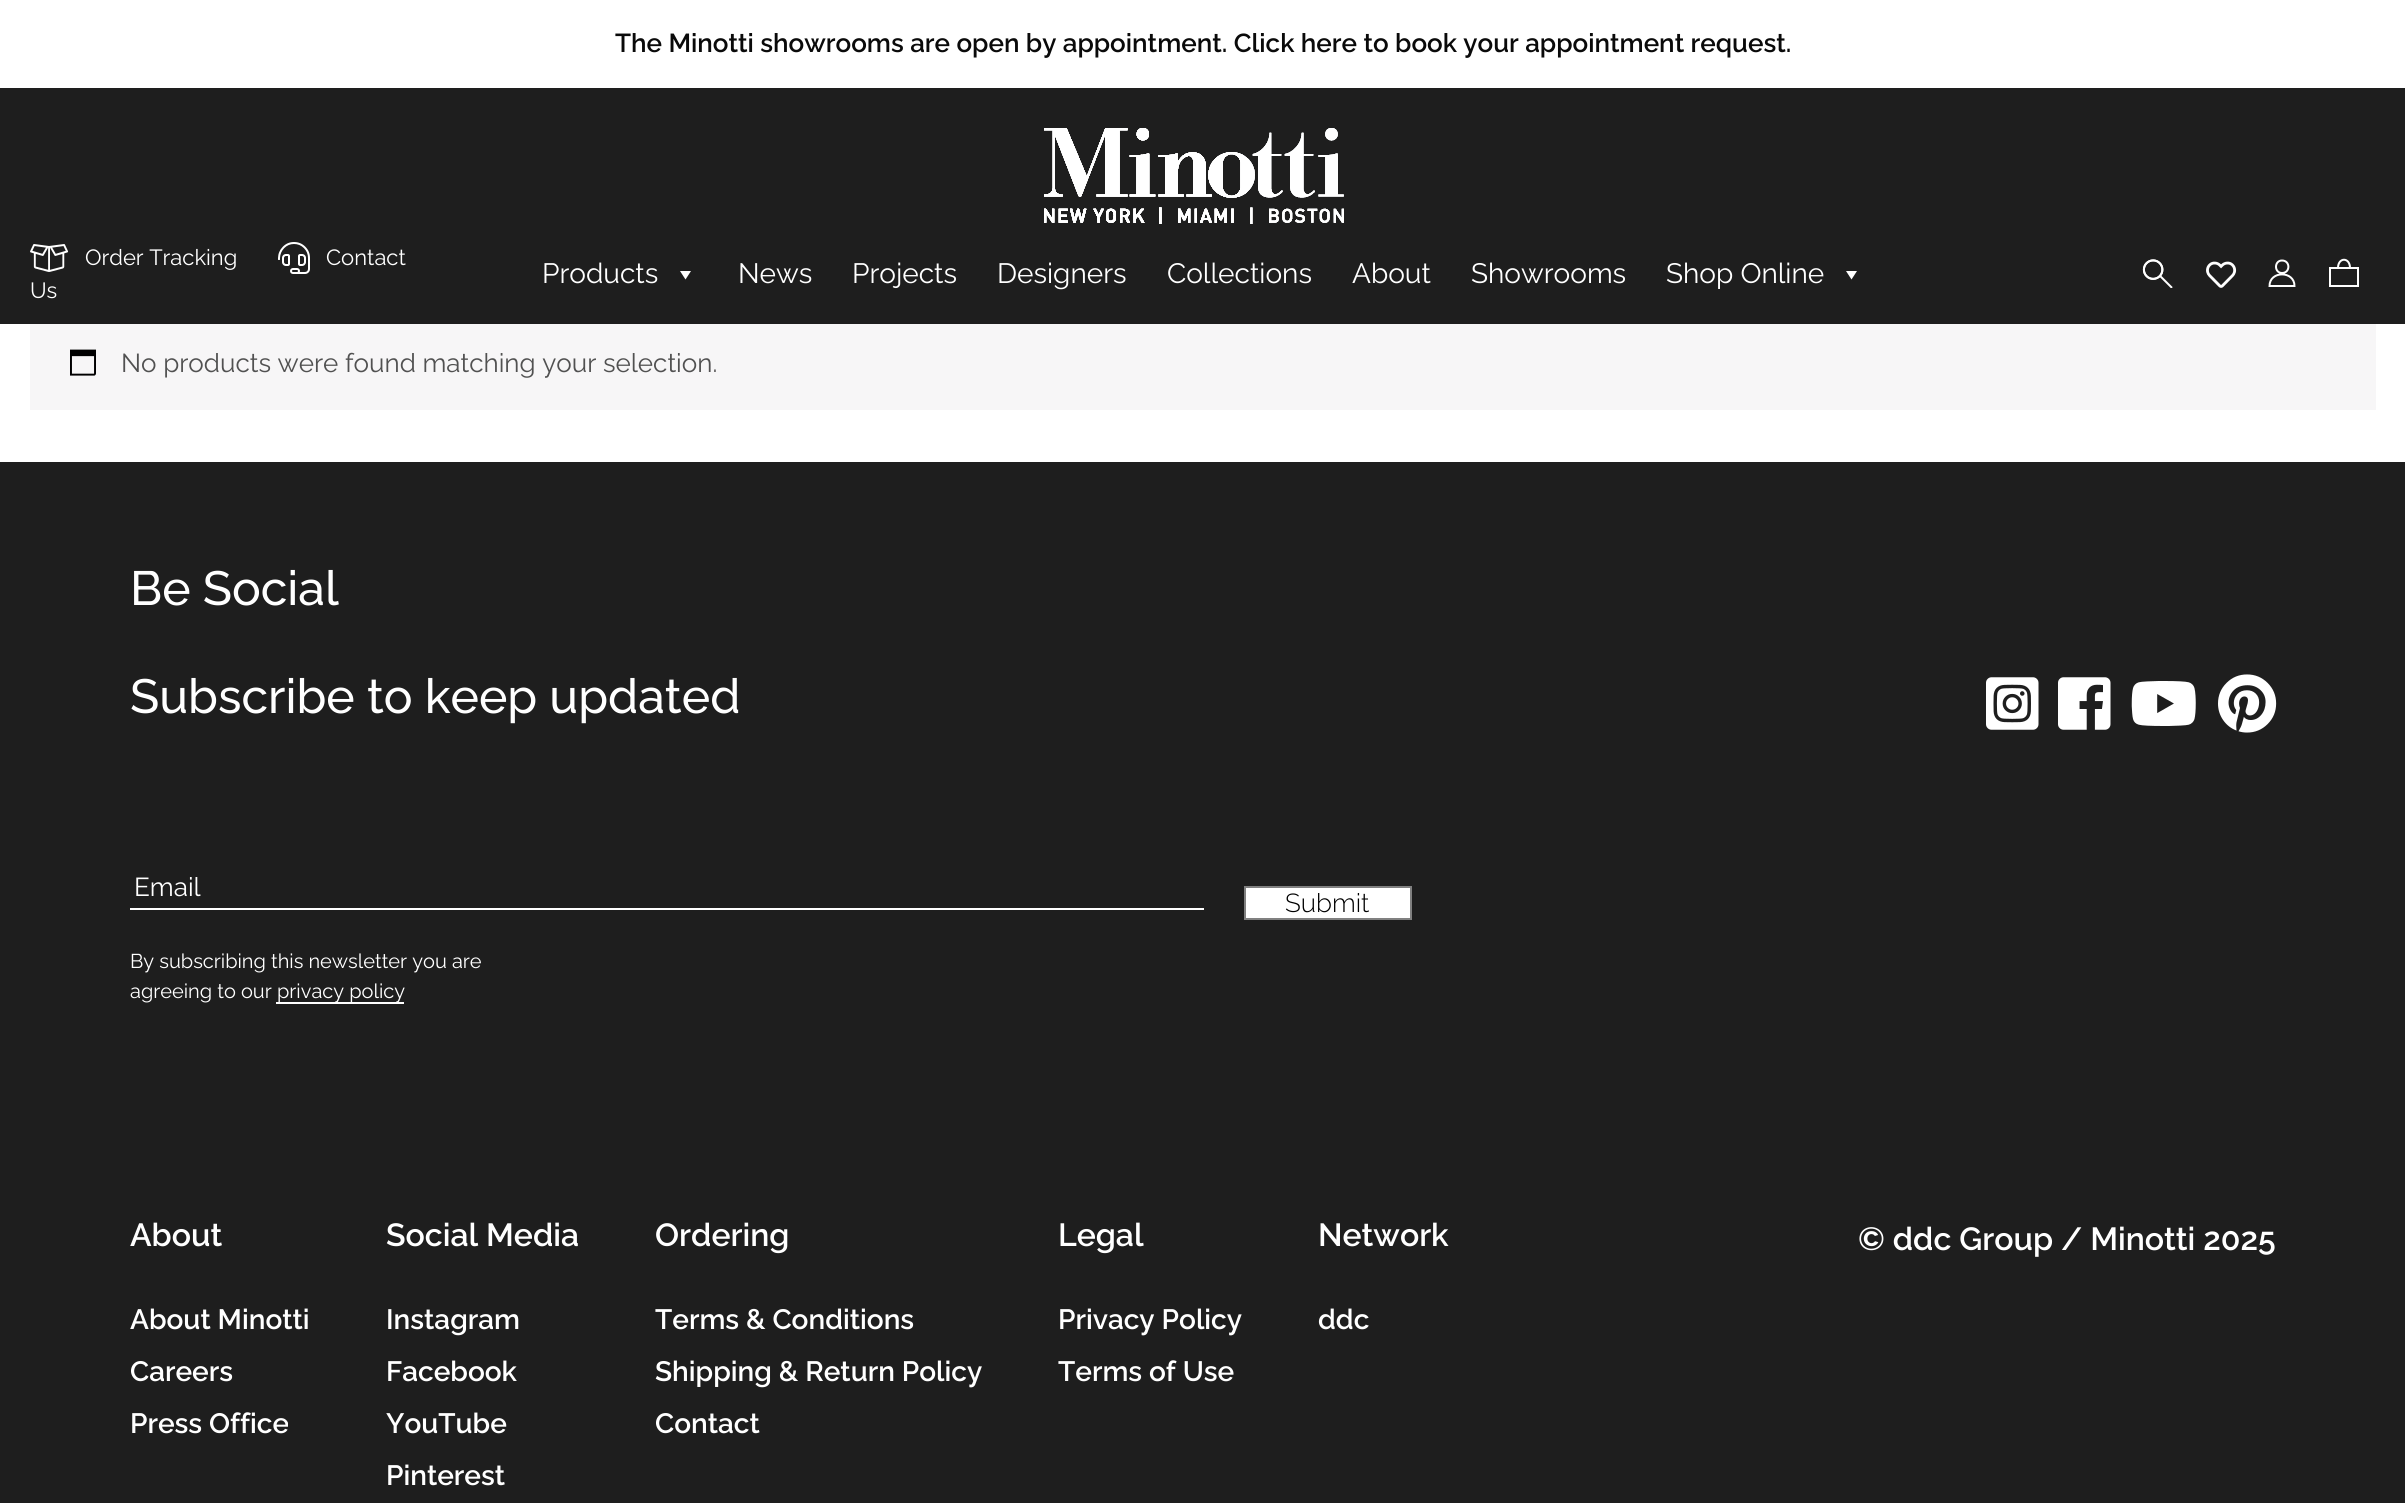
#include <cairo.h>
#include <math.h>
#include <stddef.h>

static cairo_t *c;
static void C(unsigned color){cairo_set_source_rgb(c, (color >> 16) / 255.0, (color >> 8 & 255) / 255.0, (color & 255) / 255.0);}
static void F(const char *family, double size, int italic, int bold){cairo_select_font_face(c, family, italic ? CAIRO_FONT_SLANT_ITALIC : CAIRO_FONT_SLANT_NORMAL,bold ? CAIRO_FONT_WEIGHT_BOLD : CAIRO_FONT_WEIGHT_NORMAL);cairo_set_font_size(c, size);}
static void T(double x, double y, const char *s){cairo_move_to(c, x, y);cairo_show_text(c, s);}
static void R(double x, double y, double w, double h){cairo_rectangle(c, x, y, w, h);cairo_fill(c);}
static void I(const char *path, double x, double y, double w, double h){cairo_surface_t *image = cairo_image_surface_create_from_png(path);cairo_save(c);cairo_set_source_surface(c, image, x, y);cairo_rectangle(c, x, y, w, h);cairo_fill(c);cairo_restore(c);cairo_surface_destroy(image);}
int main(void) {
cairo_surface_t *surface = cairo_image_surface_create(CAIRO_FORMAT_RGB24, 2405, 1503);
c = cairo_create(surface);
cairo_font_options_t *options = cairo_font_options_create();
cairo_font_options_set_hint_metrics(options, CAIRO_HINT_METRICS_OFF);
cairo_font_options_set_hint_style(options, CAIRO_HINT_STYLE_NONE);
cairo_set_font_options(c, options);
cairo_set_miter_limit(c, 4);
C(0xffffff);
cairo_paint(c);
C(0x1e1e1e);
R(0,88,2405,236);
F("Raleway SemiBold",26,0,0);
C(0x0a0a0a);
T(615,52,"The Minotti showrooms are open by appointment. Click here to book your appointment request.");
I("1.png",1044,128,300,96);
I("2.png",30,244,39,28);
F("Raleway",22,0,0);
C(0xffffff);
T(85,265,"Order Tracking");
I("3.png",278,242,32,32);
T(326,265,"Contact");
T(30,298,"Us");
F("Raleway",28,0,0);
T(542,283,"Products");
cairo_new_path(c);
cairo_move_to(c,691,271);
cairo_line_to(c,685.5,279.5);
cairo_line_to(c,680,271);
cairo_close_path(c);
cairo_fill(c);
T(738,283,"News");
T(852,283,"Projects");
T(997,283,"Designers");
T(1167,283,"Collections");
T(1352,283,"About");
T(1471,283,"Showrooms");
T(1666,283,"Shop Online");
cairo_new_path(c);
cairo_move_to(c,1857,271);
cairo_line_to(c,1851.5,279.5);
cairo_line_to(c,1846,271);
cairo_close_path(c);
cairo_fill(c);
I("4.png",2142,259,31,29);
I("5.png",2206,261,31,27);
cairo_new_path(c);
cairo_move_to(c,2294.5,286);
cairo_curve_to(c,2294.5,270.5,2269.5,270.5,2269.5,286);
cairo_close_path(c);
cairo_move_to(c,2282,273);
cairo_curve_to(c,2290.5,273,2290.5,260.5,2282,260.5);
cairo_curve_to(c,2274,260.5,2274,273,2282,273);
cairo_close_path(c);
cairo_stroke(c);
cairo_new_path(c);
cairo_move_to(c,2350,268);
cairo_curve_to(c,2350,257,2338,257,2338,268);
cairo_move_to(c,2330,286);
cairo_line_to(c,2358,286);
cairo_line_to(c,2358,268);
cairo_line_to(c,2330,268);
cairo_close_path(c);
cairo_stroke(c);
C(0xf7f6f7);
R(30,324,2346,86);
I("6.png",70,349,26,27);
F("Raleway",26,0,0);
C(0x515151);
T(121,372,"No products were found matching your selection.");
C(0x1e1e1e);
R(0,462,2405,1041);
F("Raleway Medium",48,0,0);
C(0xffffff);
T(130,605,"Be Social");
T(130,713,"Subscribe to keep updated");
I("7.png",1986,677,53,53);
I("8.png",2058,677,53,53);
I("9.png",2131,681,65,45);
I("10.png",2218,674,59,59);
R(130,908,1074,2);
F("Raleway",26,0,0);
T(134,896,"Email");
cairo_rectangle(c,1245,887,166,32);
cairo_fill_preserve(c);
C(0x808080);
cairo_stroke(c);
F("Raleway Light",26,0,0);
C(0x000000);
T(1285,912,"Submit");
F("Raleway",20,0,0);
C(0xffffff);
T(130,968,"By subscribing this newsletter you are");
T(130,998,"agreeing to our");
R(276,1002,128,2);
T(277,998,"privacy policy");
F("Raleway SemiBold",32,0,0);
T(130,1246,"About");
F("Raleway SemiBold",28,0,0);
T(130,1329,"About Minotti");
T(130,1381,"Careers");
T(130,1433,"Press Office");
F("Raleway SemiBold",32,0,0);
T(386,1246,"Social Media");
F("Raleway SemiBold",28,0,0);
T(386,1329,"Instagram");
T(386,1381,"Facebook");
T(386,1433,"YouTube");
T(386,1485,"Pinterest");
F("Raleway SemiBold",32,0,0);
T(655,1246,"Ordering");
F("Raleway SemiBold",28,0,0);
T(655,1329,"Terms & Conditions");
T(655,1381,"Shipping & Return Policy");
T(655,1433,"Contact");
F("Raleway SemiBold",32,0,0);
T(1058,1246,"Legal");
F("Raleway SemiBold",28,0,0);
T(1058,1329,"Privacy Policy");
T(1058,1381,"Terms of Use");
F("Raleway SemiBold",32,0,0);
T(1318,1246,"Network");
F("Raleway SemiBold",28,0,0);
T(1318,1329,"ddc");
F("Raleway SemiBold",32,0,0);
T(1858,1250,"© ddc Group / Minotti 2025");
cairo_surface_write_to_png(surface, "o.png");
cairo_font_options_destroy(options);
cairo_destroy(c);
cairo_surface_destroy(surface);
return 0;
}
